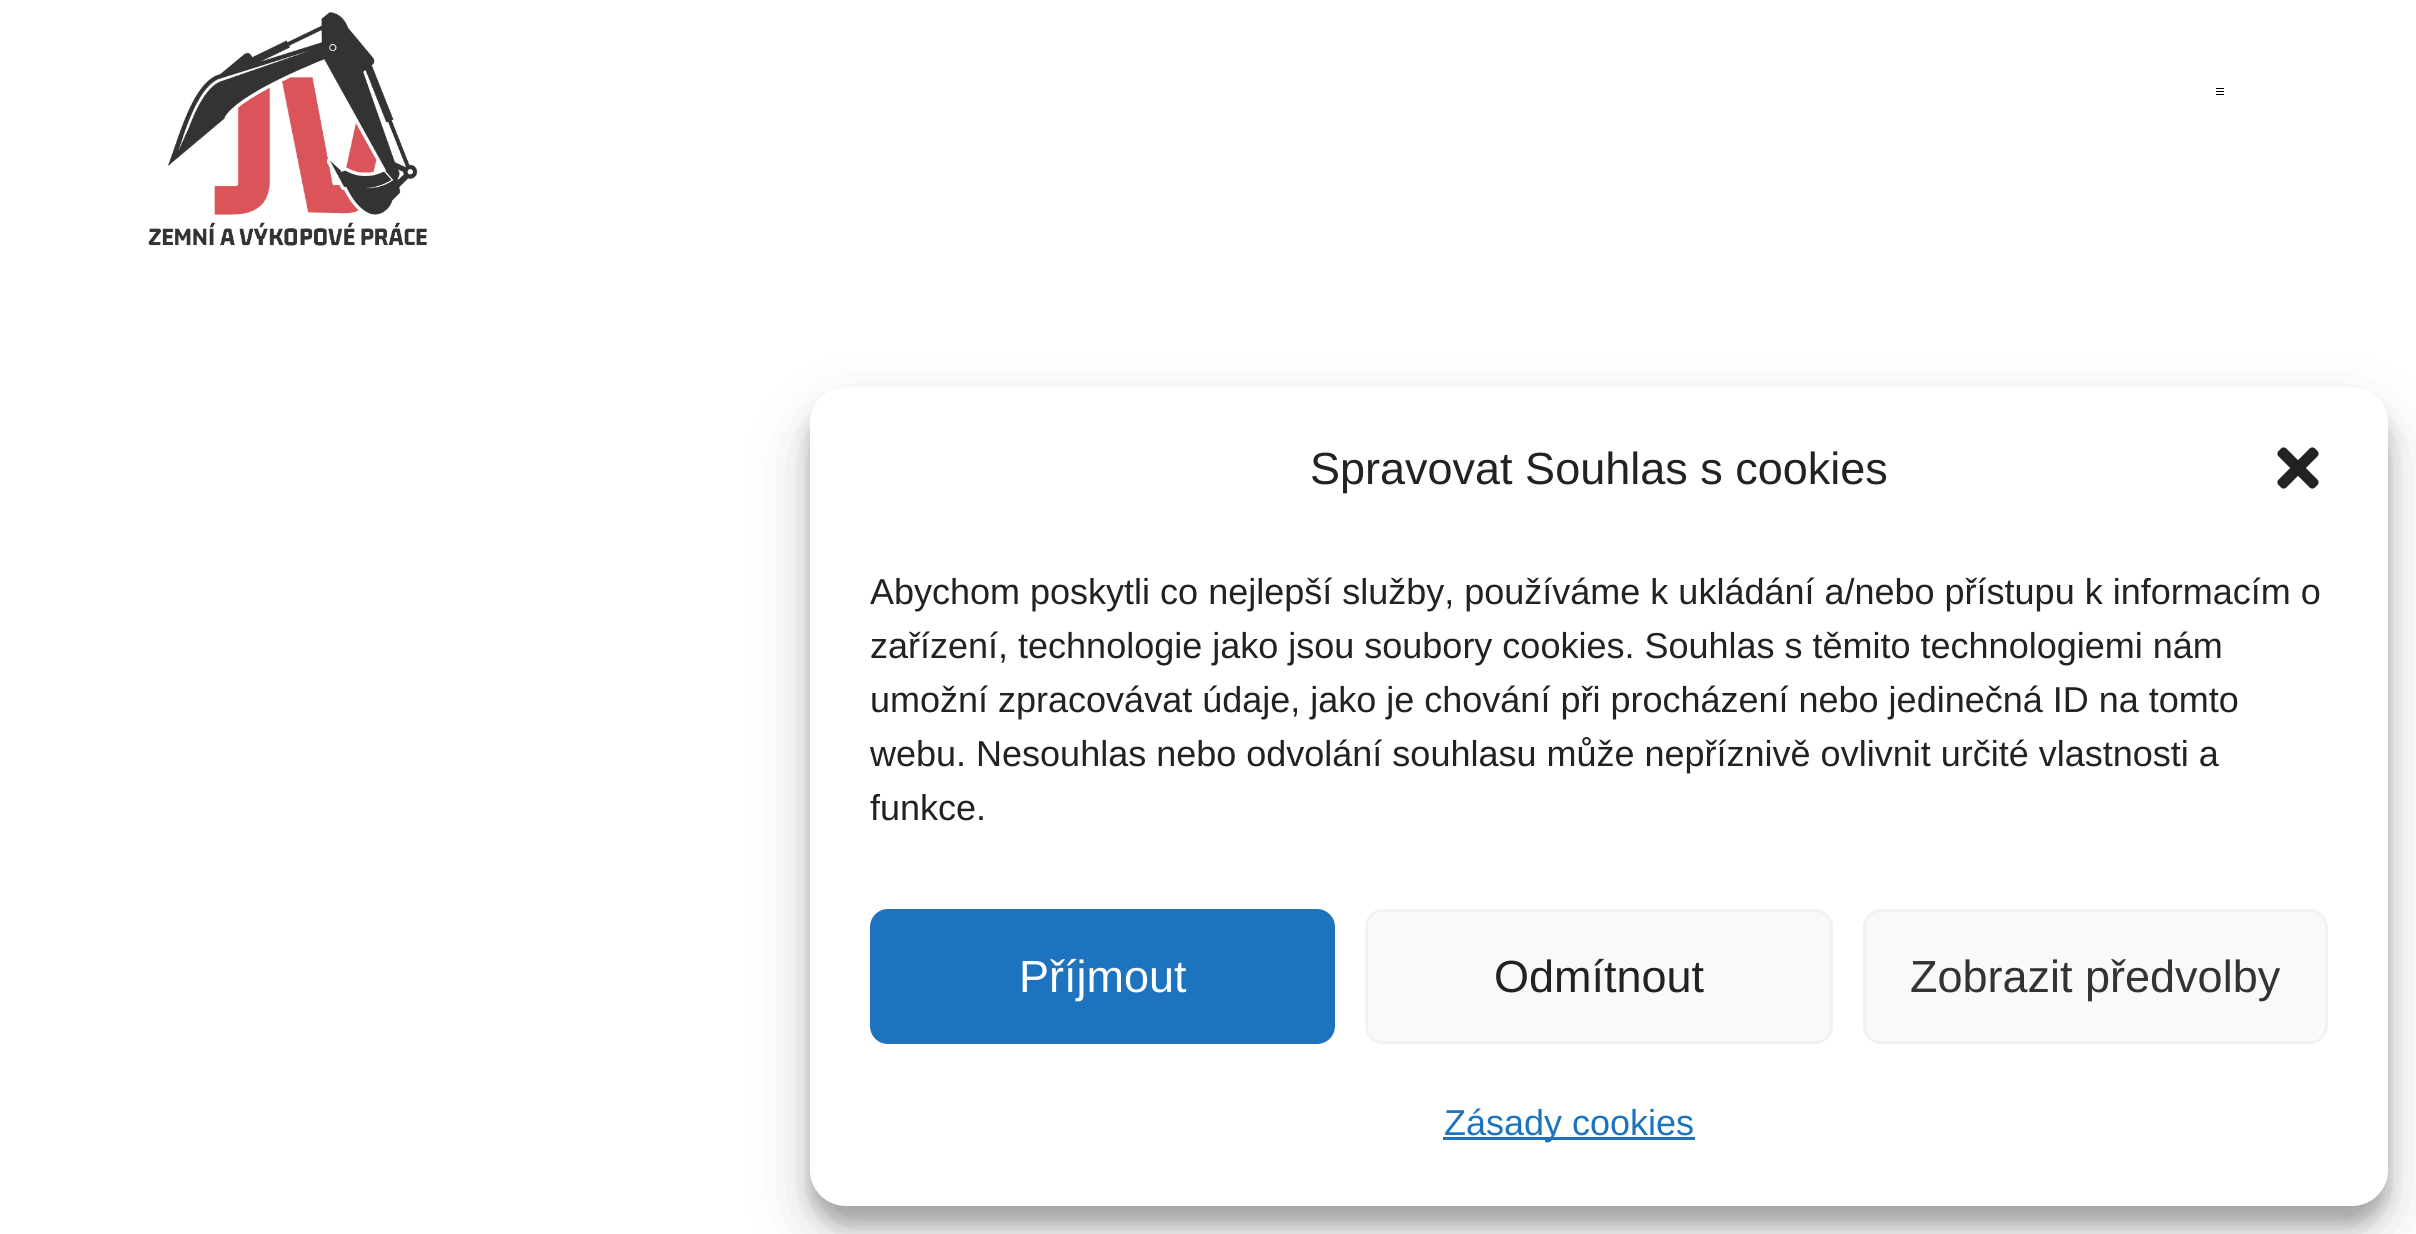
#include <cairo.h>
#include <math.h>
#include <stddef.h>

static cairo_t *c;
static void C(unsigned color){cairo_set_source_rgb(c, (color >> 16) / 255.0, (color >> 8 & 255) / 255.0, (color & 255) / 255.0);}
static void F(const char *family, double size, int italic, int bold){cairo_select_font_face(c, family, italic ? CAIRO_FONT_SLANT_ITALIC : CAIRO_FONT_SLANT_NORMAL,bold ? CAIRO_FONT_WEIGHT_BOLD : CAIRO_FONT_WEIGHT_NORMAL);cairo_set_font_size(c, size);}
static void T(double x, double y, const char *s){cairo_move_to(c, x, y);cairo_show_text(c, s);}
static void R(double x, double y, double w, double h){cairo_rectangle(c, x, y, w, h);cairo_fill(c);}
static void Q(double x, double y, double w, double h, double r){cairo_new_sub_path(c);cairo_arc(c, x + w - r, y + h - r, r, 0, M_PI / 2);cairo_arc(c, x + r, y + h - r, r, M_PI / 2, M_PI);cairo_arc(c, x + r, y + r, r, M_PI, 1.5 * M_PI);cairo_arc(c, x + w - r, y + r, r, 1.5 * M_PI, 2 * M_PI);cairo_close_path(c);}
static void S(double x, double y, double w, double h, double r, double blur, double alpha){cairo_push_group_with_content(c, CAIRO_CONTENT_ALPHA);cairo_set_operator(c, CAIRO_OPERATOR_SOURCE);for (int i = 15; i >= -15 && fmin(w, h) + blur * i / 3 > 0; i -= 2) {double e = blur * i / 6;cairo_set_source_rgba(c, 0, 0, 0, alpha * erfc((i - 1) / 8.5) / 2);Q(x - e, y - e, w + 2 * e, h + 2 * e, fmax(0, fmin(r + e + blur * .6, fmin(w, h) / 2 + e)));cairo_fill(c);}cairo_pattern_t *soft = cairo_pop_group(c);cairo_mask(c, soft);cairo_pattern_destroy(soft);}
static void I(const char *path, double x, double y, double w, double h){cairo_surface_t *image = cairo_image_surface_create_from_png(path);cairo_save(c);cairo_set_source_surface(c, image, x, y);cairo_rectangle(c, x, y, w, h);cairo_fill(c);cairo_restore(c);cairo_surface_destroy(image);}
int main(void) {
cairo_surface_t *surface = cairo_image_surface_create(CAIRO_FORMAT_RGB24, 2416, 1234);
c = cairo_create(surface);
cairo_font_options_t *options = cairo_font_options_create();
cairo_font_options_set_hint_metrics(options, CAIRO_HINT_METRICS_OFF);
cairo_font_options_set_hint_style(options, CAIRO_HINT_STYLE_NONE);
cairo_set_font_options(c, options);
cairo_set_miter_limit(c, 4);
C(0xffffff);
cairo_paint(c);
I("1.png",148,12,279,234);
C(0x000000);
R(2216,88,8,1);
R(2216,91,8,1);
R(2216,94,8,1);
C(0x000000);
S(810,405,1578,819,36,9,.23);
S(810,417,1578,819,36,30,.19);
C(0xffffff);
Q(810,387,1578,819,36);
cairo_fill(c);
F("Liberation Sans",45,0,0);
C(0x222222);
T(1310,484,"Spravovat Souhlas s cookies");
I("2.png",2277,447,42,42);
F("Liberation Sans",36,0,0);
T(870,604,"Abychom poskytli co nejlepší služby, používáme k ukládání a/nebo přístupu k informacím o");
T(870,658,"zařízení, technologie jako jsou soubory cookies. Souhlas s těmito technologiemi nám");
T(870,712,"umožní zpracovávat údaje, jako je chování při procházení nebo jedinečná ID na tomto");
T(870,766,"webu. Nesouhlas nebo odvolání souhlasu může nepříznivě ovlivnit určité vlastnosti a");
T(870,820,"funkce.");
C(0x1e73be);
Q(871.5,910.5,462,132,16.5);
cairo_fill_preserve(c);
cairo_set_line_width(c,3);
cairo_stroke(c);
F("Liberation Sans",45,0,0);
C(0xffffff);
T(1019,992,"Příjmout");
C(0xf9f9f9);
Q(1366.5,910.5,465,132,16.5);
cairo_fill_preserve(c);
C(0xf2f2f2);
cairo_stroke(c);
C(0x222222);
T(1494,992,"Odmítnout");
C(0xf9f9f9);
Q(1864.5,910.5,462,132,16.5);
cairo_fill_preserve(c);
C(0xf2f2f2);
cairo_stroke(c);
C(0x333333);
T(1910,992,"Zobrazit předvolby");
C(0x1e73be);
R(1443,1137,252,3);
F("Liberation Sans",36,0,0);
T(1444,1135,"Zásady cookies");
cairo_surface_write_to_png(surface, "o.png");
cairo_font_options_destroy(options);
cairo_destroy(c);
cairo_surface_destroy(surface);
return 0;
}
